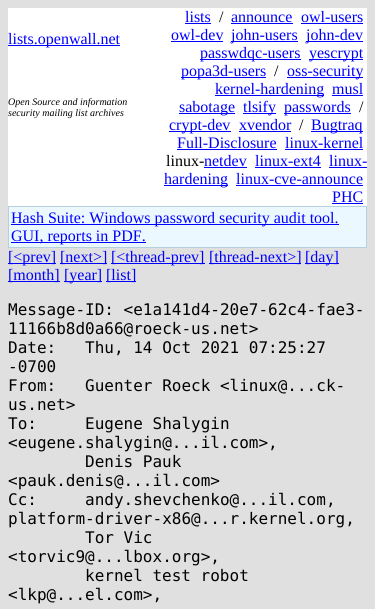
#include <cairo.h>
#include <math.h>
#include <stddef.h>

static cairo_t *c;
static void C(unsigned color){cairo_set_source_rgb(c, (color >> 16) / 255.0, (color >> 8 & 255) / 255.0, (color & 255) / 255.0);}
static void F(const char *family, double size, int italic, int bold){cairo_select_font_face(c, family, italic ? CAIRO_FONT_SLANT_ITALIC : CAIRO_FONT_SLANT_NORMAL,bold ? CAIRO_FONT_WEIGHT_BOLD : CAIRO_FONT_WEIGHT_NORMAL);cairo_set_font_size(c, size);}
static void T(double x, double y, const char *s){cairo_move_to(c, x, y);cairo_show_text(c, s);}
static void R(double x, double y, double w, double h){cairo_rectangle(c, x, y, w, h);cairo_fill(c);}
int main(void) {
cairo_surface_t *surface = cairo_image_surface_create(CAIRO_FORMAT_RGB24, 375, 609);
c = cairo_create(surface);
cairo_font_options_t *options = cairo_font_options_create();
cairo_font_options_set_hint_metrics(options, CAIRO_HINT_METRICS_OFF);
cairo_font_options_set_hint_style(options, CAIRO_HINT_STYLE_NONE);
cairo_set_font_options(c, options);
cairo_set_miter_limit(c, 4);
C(0xe0e0e0);
cairo_paint(c);
C(0xffffff);
R(8,8,359,198);
C(0x0000ff);
R(8,45,112,1);
F("Liberation Serif",16,0,0);
T(8,44,"lists.openwall.net");
T(185,22,"lists");
R(185,23,26,1);
C(0x000000);
T(219,22,"/");
C(0x0000ff);
T(231,22,"announce");
R(231,23,62,1);
T(301,22,"owl-users");
R(301,23,62,1);
T(171,40,"owl-dev");
R(171,41,52,1);
R(231,41,67,1);
T(231,40,"john-users");
R(306,41,57,1);
T(306,40,"john-dev");
R(200,59,101,1);
T(200,58,"passwdqc-users");
R(309,59,54,1);
T(309,58,"yescrypt");
R(181,77,85,1);
T(181,76,"popa3d-users");
C(0x000000);
T(274,76,"/");
C(0x0000ff);
R(287,77,76,1);
T(287,76,"oss-security");
R(215,95,109,1);
T(215,94,"kernel-hardening");
T(332,94,"musl");
R(332,95,31,1);
R(179,113,56,1);
T(179,112,"sabotage");
R(243,113,33,1);
T(243,112,"tlsify");
R(284,113,67,1);
T(284,112,"passwords");
C(0x000000);
T(359,112,"/");
C(0x0000ff);
R(169,131,62,1);
T(169,130,"crypt-dev");
T(239,130,"xvendor");
R(239,131,52,1);
C(0x000000);
T(299,130,"/");
C(0x0000ff);
R(311,131,52,1);
T(311,130,"Bugtraq");
T(177,148,"Full-Disclosure");
R(177,149,100,1);
T(285,148,"linux-kernel");
R(285,149,78,1);
C(0x000000);
T(166,166,"linux-");
C(0x0000ff);
T(204,166,"netdev");
R(204,167,43,1);
T(255,166,"linux-ext4");
R(255,167,66,1);
T(329,166,"linux-");
R(329,167,38,1);
R(164,185,64,1);
T(164,184,"hardening");
T(236,184,"linux-cve-announce");
R(236,185,127,1);
T(332,202,"PHC");
R(332,203,31,1);
F("Liberation Serif",10,1,0);
C(0x000000);
T(8,105,"Open Source and information");
T(8,116,"security mailing list archives");
C(0xb4d0dc);
R(8,206,359,42);
C(0xecf8ff);
R(9,207,357,40);
C(0x0000ff);
R(11,224,328,1);
F("Liberation Serif",16,0,0);
T(11,223,"Hash Suite: Windows password security audit tool.");
R(11,242,135,1);
T(11,241,"GUI, reports in PDF.");
R(8,263,48,1);
T(8,262,"[<prev]");
R(60,263,47,1);
T(60,262,"[next>]");
R(111,263,94,1);
T(111,262,"[<thread-prev]");
R(209,263,92,1);
T(209,262,"[thread-next>]");
R(305,263,34,1);
T(305,262,"[day]");
R(8,281,52,1);
T(8,280,"[month]");
R(64,281,38,1);
T(64,280,"[year]");
R(106,281,30,1);
T(106,280,"[list]");
F("DejaVu Sans Mono",16,0,0);
C(0x000000);
T(8,315,"Message-ID: <e1a141d4-20e7-62c4-fae3-");
T(8,334,"11166b8d0a66@roeck-us.net>");
T(8,353,"Date:   Thu, 14 Oct 2021 07:25:27");
T(8,372,"-0700");
T(8,391,"From:   Guenter Roeck <linux@...ck-");
T(8,410,"us.net>");
T(8,429,"To:     Eugene Shalygin");
T(8,448,"<eugene.shalygin@...il.com>,");
T(85,467,"Denis Pauk");
T(8,486,"<pauk.denis@...il.com>");
T(8,505,"Cc:     andy.shevchenko@...il.com,");
T(8,524,"platform-driver-x86@...r.kernel.org,");
T(85,543,"Tor Vic");
T(8,562,"<torvic9@...lbox.org>,");
T(85,581,"kernel test robot");
T(8,600,"<lkp@...el.com>,");
cairo_surface_write_to_png(surface, "o.png");
cairo_font_options_destroy(options);
cairo_destroy(c);
cairo_surface_destroy(surface);
return 0;
}
